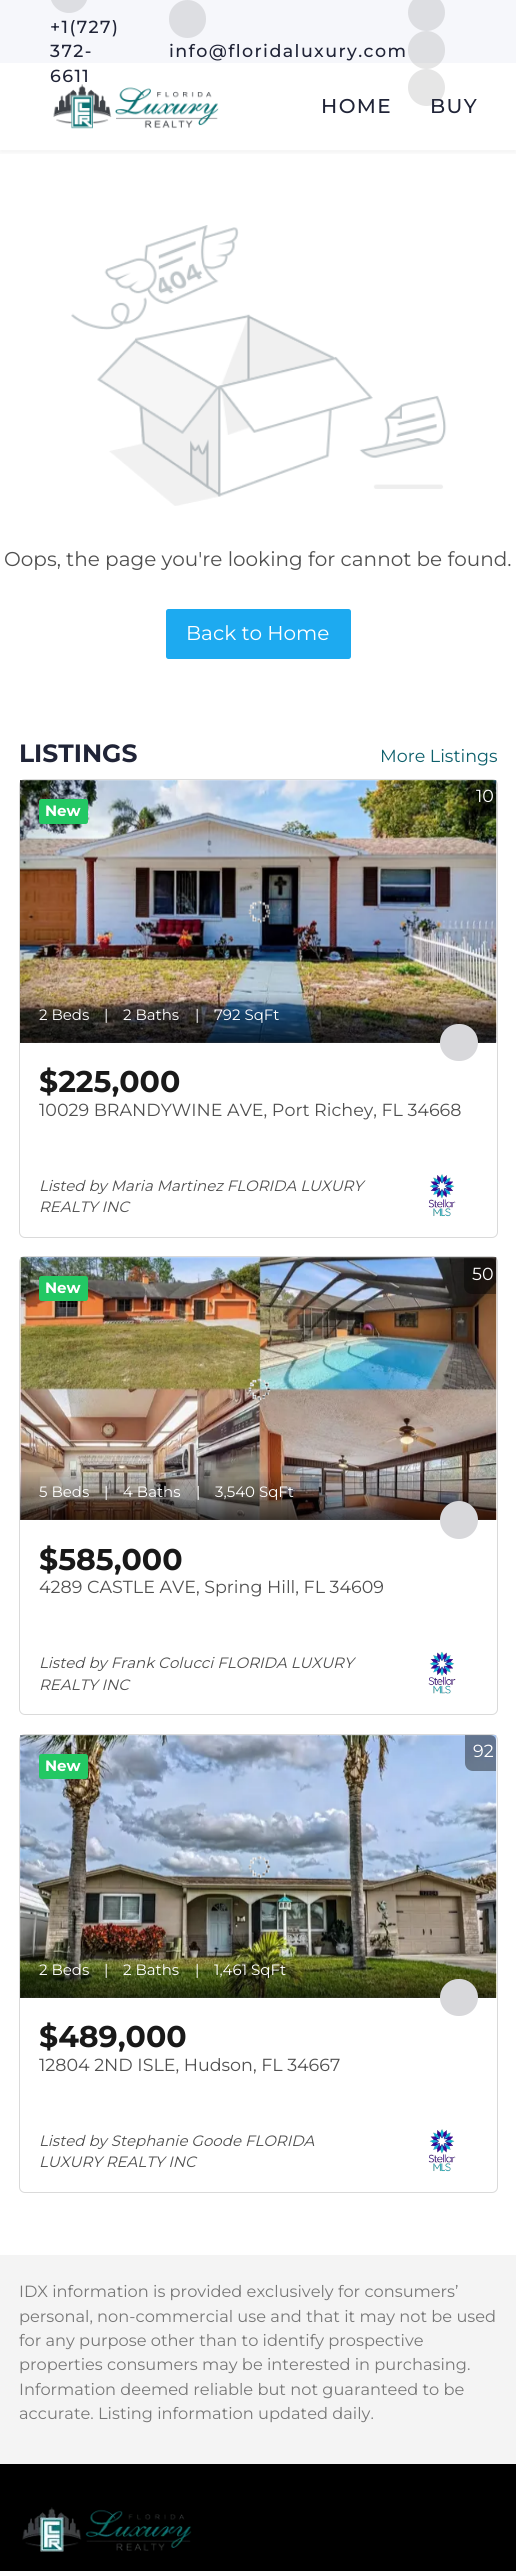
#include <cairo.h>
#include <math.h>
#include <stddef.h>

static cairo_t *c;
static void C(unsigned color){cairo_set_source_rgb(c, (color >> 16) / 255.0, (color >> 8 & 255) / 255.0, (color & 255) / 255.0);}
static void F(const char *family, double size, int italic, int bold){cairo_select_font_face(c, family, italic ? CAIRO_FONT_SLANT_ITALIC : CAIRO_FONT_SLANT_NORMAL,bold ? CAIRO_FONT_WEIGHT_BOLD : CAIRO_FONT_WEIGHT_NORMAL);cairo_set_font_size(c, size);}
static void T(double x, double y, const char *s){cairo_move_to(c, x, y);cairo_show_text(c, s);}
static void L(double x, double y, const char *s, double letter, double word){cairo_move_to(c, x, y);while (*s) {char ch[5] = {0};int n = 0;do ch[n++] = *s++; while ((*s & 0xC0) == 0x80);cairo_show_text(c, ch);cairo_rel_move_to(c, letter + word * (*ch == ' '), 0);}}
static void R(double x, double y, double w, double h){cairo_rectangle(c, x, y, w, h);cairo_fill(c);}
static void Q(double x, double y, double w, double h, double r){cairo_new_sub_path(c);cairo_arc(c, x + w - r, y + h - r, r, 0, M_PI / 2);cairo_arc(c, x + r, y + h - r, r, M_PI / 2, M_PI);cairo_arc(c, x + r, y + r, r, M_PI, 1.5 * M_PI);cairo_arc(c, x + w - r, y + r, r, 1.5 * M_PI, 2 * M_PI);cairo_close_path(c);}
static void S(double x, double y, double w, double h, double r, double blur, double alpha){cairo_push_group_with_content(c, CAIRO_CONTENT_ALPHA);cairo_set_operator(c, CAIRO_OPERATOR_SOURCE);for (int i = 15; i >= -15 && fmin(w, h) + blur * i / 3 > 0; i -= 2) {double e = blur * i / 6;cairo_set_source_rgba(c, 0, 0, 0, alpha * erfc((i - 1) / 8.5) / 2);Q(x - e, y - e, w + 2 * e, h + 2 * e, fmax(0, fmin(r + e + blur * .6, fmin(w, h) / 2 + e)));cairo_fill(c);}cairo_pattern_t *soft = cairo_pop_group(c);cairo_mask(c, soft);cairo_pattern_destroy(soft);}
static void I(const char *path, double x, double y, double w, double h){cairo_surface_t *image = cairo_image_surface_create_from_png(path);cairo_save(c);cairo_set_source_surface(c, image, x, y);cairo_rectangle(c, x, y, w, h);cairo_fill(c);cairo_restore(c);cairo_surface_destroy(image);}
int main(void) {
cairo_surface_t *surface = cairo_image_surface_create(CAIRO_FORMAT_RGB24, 516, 2571);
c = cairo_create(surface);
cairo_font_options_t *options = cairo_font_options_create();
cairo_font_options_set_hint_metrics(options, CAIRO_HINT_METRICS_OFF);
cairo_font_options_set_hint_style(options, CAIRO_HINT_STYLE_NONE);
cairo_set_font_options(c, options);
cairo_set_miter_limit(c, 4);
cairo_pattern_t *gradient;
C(0xffffff);
cairo_paint(c);
cairo_save(c);
cairo_rectangle(c,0,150,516,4);
cairo_clip(c);
C(0x000000);
S(0,3,516,150,0,3,.05);
cairo_restore(c);
C(0xf6f7fb);
R(0,0,516,63);
C(0xdddee2);
Q(50,-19,38,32,19);
cairo_fill(c);
F("Montserrat Medium",17.5,0,0);
C(0x202437);
L(50,33,"+1(727)",1.4,0);
L(50,57,"372-",1.4,0);
L(50,82,"6611",1.4,0);
C(0xdddee2);
Q(169,0,37,38,18.5);
cairo_fill(c);
C(0x202437);
L(169,57,"info@floridaluxury.com",1.4,0);
C(0xdddee2);
cairo_new_path(c);
cairo_arc(c,426.5,12.5,18.5,0,2 * M_PI);
cairo_fill(c);
cairo_set_source_rgba(c,0,0,0,0.1);
Q(408,31,37,38,18.5);
cairo_fill(c);
C(0xe6e6e6);
cairo_arc(c,426.5,87.5,18.5,0,2 * M_PI);
cairo_fill(c);
I("1.png",53,84,166,45);
F("Montserrat Medium",20,0,0);
C(0x202437);
L(321,113,"HOME",1.4,0);
L(430,113,"BUY",1.4,0);
I("2.png",71,225,376,281);
F("Montserrat",20,0,0);
C(0x505050);
T(4,566,"Oops, the page you're looking for cannot be found.");
C(0x1daaf0);
Q(166,609,185,50,2.5);
cairo_fill(c);
C(0xffffff);
T(186,640,"Back to Home");
F("Montserrat",25,0,1);
C(0x202437);
T(19,762,"LISTINGS");
F("Montserrat",17.5,0,0);
C(0x0e606c);
T(380,762,"More Listings");
Q(19.5,779.5,478,458,5.5);
C(0xdadada);
cairo_set_line_width(c,1);
cairo_stroke(c);
I("3.png",20,780,477,263);
I("4.png",248,900,23,24);
cairo_set_source_rgba(c,0,0,0,0.4);
cairo_new_path(c);
cairo_move_to(c,468,780);
cairo_line_to(c,490,780);
cairo_curve_to(c,493.5,780,496,782.5,496,786);
cairo_line_to(c,496,816);
cairo_line_to(c,476,816);
cairo_curve_to(c,471.5,816,468,812.5,468,808);
cairo_close_path(c);
cairo_fill(c);
C(0xffffff);
T(476,802,"10");
gradient = cairo_pattern_create_linear(258,993,258,1043);
cairo_pattern_add_color_stop_rgba(gradient,0,0,0,0,0);
cairo_pattern_add_color_stop_rgba(gradient,1,0,0,0,.7);
cairo_set_source(c,gradient);
cairo_pattern_destroy(gradient);
R(20,995,476,48);
F("Montserrat",15,0,0);
C(0xffffff);
T(39,1020,"2 Beds");
T(104,1020,"|");
T(123,1020,"2 Baths");
T(195,1020,"|");
T(214,1020,"792 SqFt");
C(0x23c864);
Q(39,799,49,25,2.5);
cairo_fill(c);
F("Montserrat",15,0,1);
C(0xffffff);
T(45,816,"New");
C(0xd8d8db);
Q(440,1024,38,37,18.5);
cairo_fill(c);
F("Montserrat",30,0,1);
C(0x191919);
T(39,1092,"$225,000");
F("Montserrat",17.5,0,0);
C(0x505050);
T(39,1116,"10029 BRANDYWINE AVE, Port Richey, FL 34668");
F("Montserrat",15,1,0);
T(39,1191,"Listed by Maria Martinez FLORIDA LUXURY");
T(39,1212,"REALTY INC");
I("5.png",428,1174,28,43);
Q(19.5,1256.5,478,458,5.5);
C(0xdadada);
cairo_stroke(c);
I("6.png",20,1257,477,263);
I("7.png",248,1378,23,23);
cairo_set_source_rgba(c,0,0,0,0.4);
cairo_new_path(c);
cairo_move_to(c,464,1258);
cairo_line_to(c,490,1258);
cairo_curve_to(c,493.5,1258,496,1260.5,496,1264);
cairo_line_to(c,496,1294);
cairo_line_to(c,472,1294);
cairo_curve_to(c,467.5,1294,464,1290.5,464,1286);
cairo_close_path(c);
cairo_fill(c);
F("Montserrat",17.5,0,0);
C(0xffffff);
T(472,1280,"50");
gradient = cairo_pattern_create_linear(258,1470,258,1520);
cairo_pattern_add_color_stop_rgba(gradient,0,0,0,0,0);
cairo_pattern_add_color_stop_rgba(gradient,1,0,0,0,.7);
cairo_set_source(c,gradient);
cairo_pattern_destroy(gradient);
R(20,1472,476,48);
F("Montserrat",15,0,0);
C(0xffffff);
T(39,1497,"5 Beds");
T(104,1497,"|");
T(123,1497,"4 Baths");
T(196,1497,"|");
T(215,1497,"3,540 SqFt");
C(0x23c864);
Q(39,1276,49,25,2.5);
cairo_fill(c);
F("Montserrat",15,0,1);
C(0xffffff);
T(45,1293,"New");
C(0xd8d8db);
cairo_new_path(c);
cairo_arc(c,459,1520,19,0,2 * M_PI);
cairo_fill(c);
F("Montserrat",30,0,1);
C(0x191919);
T(39,1570,"$585,000");
F("Montserrat",17.5,0,0);
C(0x505050);
T(39,1593,"4289 CASTLE AVE, Spring Hill, FL 34609");
F("Montserrat",15,1,0);
T(39,1668,"Listed by Frank Colucci FLORIDA LUXURY");
T(39,1690,"REALTY INC");
I("8.png",428,1651,28,43);
Q(19.5,1734.5,478,458,5.5);
C(0xdadada);
cairo_stroke(c);
I("9.png",20,1735,477,263);
I("10.png",248,1855,23,24);
cairo_set_source_rgba(c,0,0,0,0.4);
cairo_new_path(c);
cairo_move_to(c,465,1735);
cairo_line_to(c,490,1735);
cairo_curve_to(c,493.5,1735,496,1737.5,496,1741);
cairo_line_to(c,496,1771);
cairo_line_to(c,473,1771);
cairo_curve_to(c,468.5,1771,465,1767.5,465,1763);
cairo_close_path(c);
cairo_fill(c);
F("Montserrat",17.5,0,0);
C(0xffffff);
T(473,1757,"92");
gradient = cairo_pattern_create_linear(258,1948,258,1998);
cairo_pattern_add_color_stop_rgba(gradient,0,0,0,0,0);
cairo_pattern_add_color_stop_rgba(gradient,1,0,0,0,.7);
cairo_set_source(c,gradient);
cairo_pattern_destroy(gradient);
R(20,1950,476,48);
F("Montserrat",15,0,0);
C(0xffffff);
T(39,1975,"2 Beds");
T(104,1975,"|");
T(123,1975,"2 Baths");
T(195,1975,"|");
T(214,1975,"1,461 SqFt");
C(0x23c864);
Q(39,1754,49,25,2.5);
cairo_fill(c);
F("Montserrat",15,0,1);
C(0xffffff);
T(45,1771,"New");
C(0xd8d8db);
Q(440,1979,38,37,18.5);
cairo_fill(c);
F("Montserrat",30,0,1);
C(0x191919);
T(39,2047,"$489,000");
F("Montserrat",17.5,0,0);
C(0x505050);
T(39,2071,"12804 2ND ISLE, Hudson, FL 34667");
F("Montserrat",15,1,0);
T(39,2146,"Listed by Stephanie Goode FLORIDA");
T(39,2167,"LUXURY REALTY INC");
I("5.png",428,2129,28,43);
C(0xf4f4f4);
R(0,2255,516,209);
F("Montserrat",16.25,0,0);
C(0x787878);
T(19,2297,"IDX information is provided exclusively for consumers’");
T(19,2322,"personal, non-commercial use and that it may not be used");
T(19,2346,"for any purpose other than to identify prospective");
T(19,2370,"properties consumers may be interested in purchasing.");
T(19,2395,"Information deemed reliable but not guaranteed to be");
T(19,2419,"accurate. Listing information updated daily.");
C(0x000000);
R(0,2464,516,107);
I("11.png",22,2507,170,45);
cairo_surface_write_to_png(surface, "o.png");
cairo_font_options_destroy(options);
cairo_destroy(c);
cairo_surface_destroy(surface);
return 0;
}
